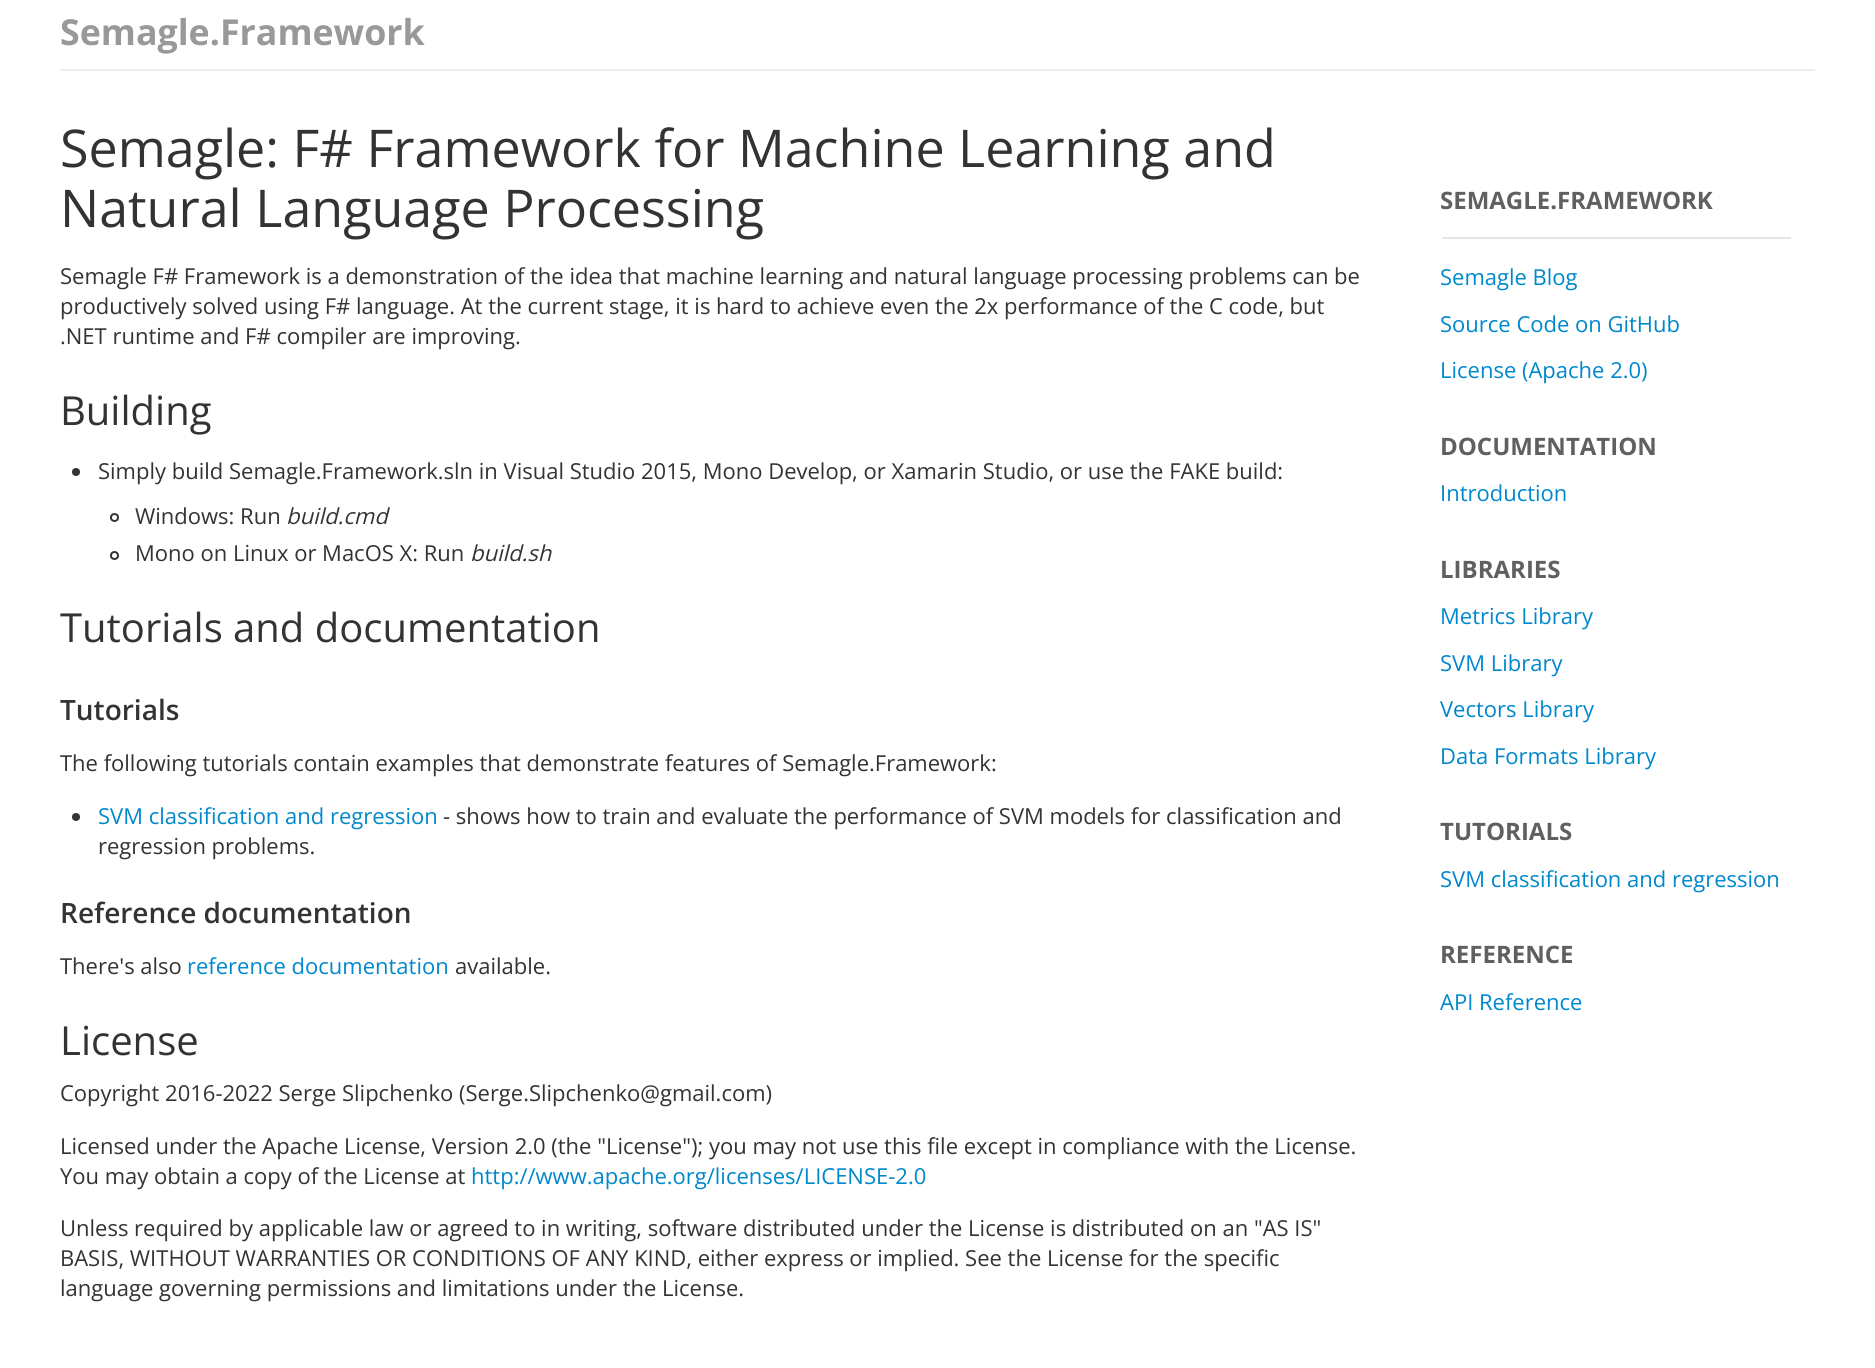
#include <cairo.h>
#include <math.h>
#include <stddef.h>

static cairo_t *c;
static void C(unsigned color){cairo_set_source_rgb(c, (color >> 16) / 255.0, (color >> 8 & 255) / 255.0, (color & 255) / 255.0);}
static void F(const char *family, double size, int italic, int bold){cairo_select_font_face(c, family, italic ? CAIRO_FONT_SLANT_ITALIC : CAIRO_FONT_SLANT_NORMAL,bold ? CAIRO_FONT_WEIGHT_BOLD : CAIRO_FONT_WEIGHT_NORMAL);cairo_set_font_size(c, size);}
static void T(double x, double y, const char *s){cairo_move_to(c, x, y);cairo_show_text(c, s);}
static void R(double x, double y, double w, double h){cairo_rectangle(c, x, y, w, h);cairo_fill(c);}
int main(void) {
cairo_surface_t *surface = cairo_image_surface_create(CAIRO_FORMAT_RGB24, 1875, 1368);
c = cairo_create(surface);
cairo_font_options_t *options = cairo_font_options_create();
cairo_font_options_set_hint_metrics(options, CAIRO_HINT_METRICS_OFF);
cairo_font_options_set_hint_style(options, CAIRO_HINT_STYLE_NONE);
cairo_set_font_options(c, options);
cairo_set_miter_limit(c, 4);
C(0xffffff);
cairo_paint(c);
F("Open Sans",35.75,0,1);
C(0x999999);
T(60,45,"Semagle.Framework");
C(0xeeeeee);
R(60,69,1755,2);
F("Open Sans",52,0,0);
C(0x333333);
T(60,167,"Semagle: F# Framework for Machine Learning and");
T(60,227,"Natural Language Processing");
F("Open Sans",22,0,0);
T(60,284,"Semagle F# Framework is a demonstration of the idea that machine learning and natural language processing problems can be");
T(60,314,"productively solved using F# language. At the current stage, it is hard to achieve even the 2x performance of the C code, but");
T(60,344,".NET runtime and F# compiler are improving.");
F("Open Sans",40,0,0);
T(60,425,"Building");
cairo_new_path(c);
cairo_arc(c,76,472,4,0,2 * M_PI);
cairo_fill(c);
F("Open Sans",22,0,0);
T(98,479,"Simply build Semagle.Framework.sln in Visual Studio 2015, Mono Develop, or Xamarin Studio, or use the FAKE build:");
cairo_new_path(c);
cairo_arc(c,114.5,517.5,3.5,0,2 * M_PI);
cairo_stroke(c);
T(135,524,"Windows: Run");
F("Open Sans",22,1,0);
T(286,524,"build.cmd");
cairo_new_path(c);
cairo_arc(c,114.5,555.5,3.5,0,2 * M_PI);
cairo_stroke(c);
F("Open Sans",22,0,0);
T(135,561,"Mono on Linux or MacOS X: Run");
F("Open Sans",22,1,0);
T(470,561,"build.sh");
F("Open Sans",40,0,0);
T(60,642,"Tutorials and documentation");
F("Open Sans SemiBold",28,0,0);
T(60,720,"Tutorials");
F("Open Sans",22,0,0);
T(60,771,"The following tutorials contain examples that demonstrate features of Semagle.Framework:");
cairo_new_path(c);
cairo_arc(c,76,817,4,0,2 * M_PI);
cairo_fill(c);
C(0x0088cc);
T(98,824,"SVM classification and regression");
C(0x333333);
T(443,824,"- shows how to train and evaluate the performance of SVM models for classification and");
T(98,854,"regression problems.");
F("Open Sans SemiBold",28,0,0);
T(60,923,"Reference documentation");
F("Open Sans",22,0,0);
T(60,974,"There's also");
C(0x0088cc);
T(187,974,"reference documentation");
C(0x333333);
T(455,974,"available.");
F("Open Sans",40,0,0);
T(60,1055,"License");
F("Open Sans",22,0,0);
T(60,1101,"Copyright 2016-2022 Serge Slipchenko (Serge.Slipchenko@gmail.com)");
T(60,1154,"Licensed under the Apache License, Version 2.0 (the \"License\"); you may not use this file except in compliance with the License.");
T(60,1184,"You may obtain a copy of the License at");
C(0x0088cc);
T(471,1184,"http://www.apache.org/licenses/LICENSE-2.0");
C(0x333333);
T(60,1236,"Unless required by applicable law or agreed to in writing, software distributed under the License is distributed on an \"AS IS\"");
T(60,1266,"BASIS, WITHOUT WARRANTIES OR CONDITIONS OF ANY KIND, either express or implied. See the License for the specific");
T(60,1296,"language governing permissions and limitations under the License.");
F("Open Sans",24,0,1);
C(0x606060);
T(1440,209,"SEMAGLE.FRAMEWORK");
C(0xe5e5e5);
R(1442,237,349,2);
F("Open Sans",22,0,0);
C(0x0088cc);
T(1440,285,"Semagle Blog");
T(1440,332,"Source Code on GitHub");
T(1440,378,"License (Apache 2.0)");
F("Open Sans",24,0,1);
C(0x606060);
T(1440,455,"DOCUMENTATION");
F("Open Sans",22,0,0);
C(0x0088cc);
T(1440,501,"Introduction");
F("Open Sans",24,0,1);
C(0x606060);
T(1440,578,"LIBRARIES");
F("Open Sans",22,0,0);
C(0x0088cc);
T(1440,624,"Metrics Library");
T(1440,671,"SVM Library");
T(1440,717,"Vectors Library");
T(1440,764,"Data Formats Library");
F("Open Sans",24,0,1);
C(0x606060);
T(1440,840,"TUTORIALS");
F("Open Sans",22,0,0);
C(0x0088cc);
T(1440,887,"SVM classification and regression");
F("Open Sans",24,0,1);
C(0x606060);
T(1440,963,"REFERENCE");
F("Open Sans",22,0,0);
C(0x0088cc);
T(1440,1010,"API Reference");
cairo_surface_write_to_png(surface, "o.png");
cairo_font_options_destroy(options);
cairo_destroy(c);
cairo_surface_destroy(surface);
return 0;
}
